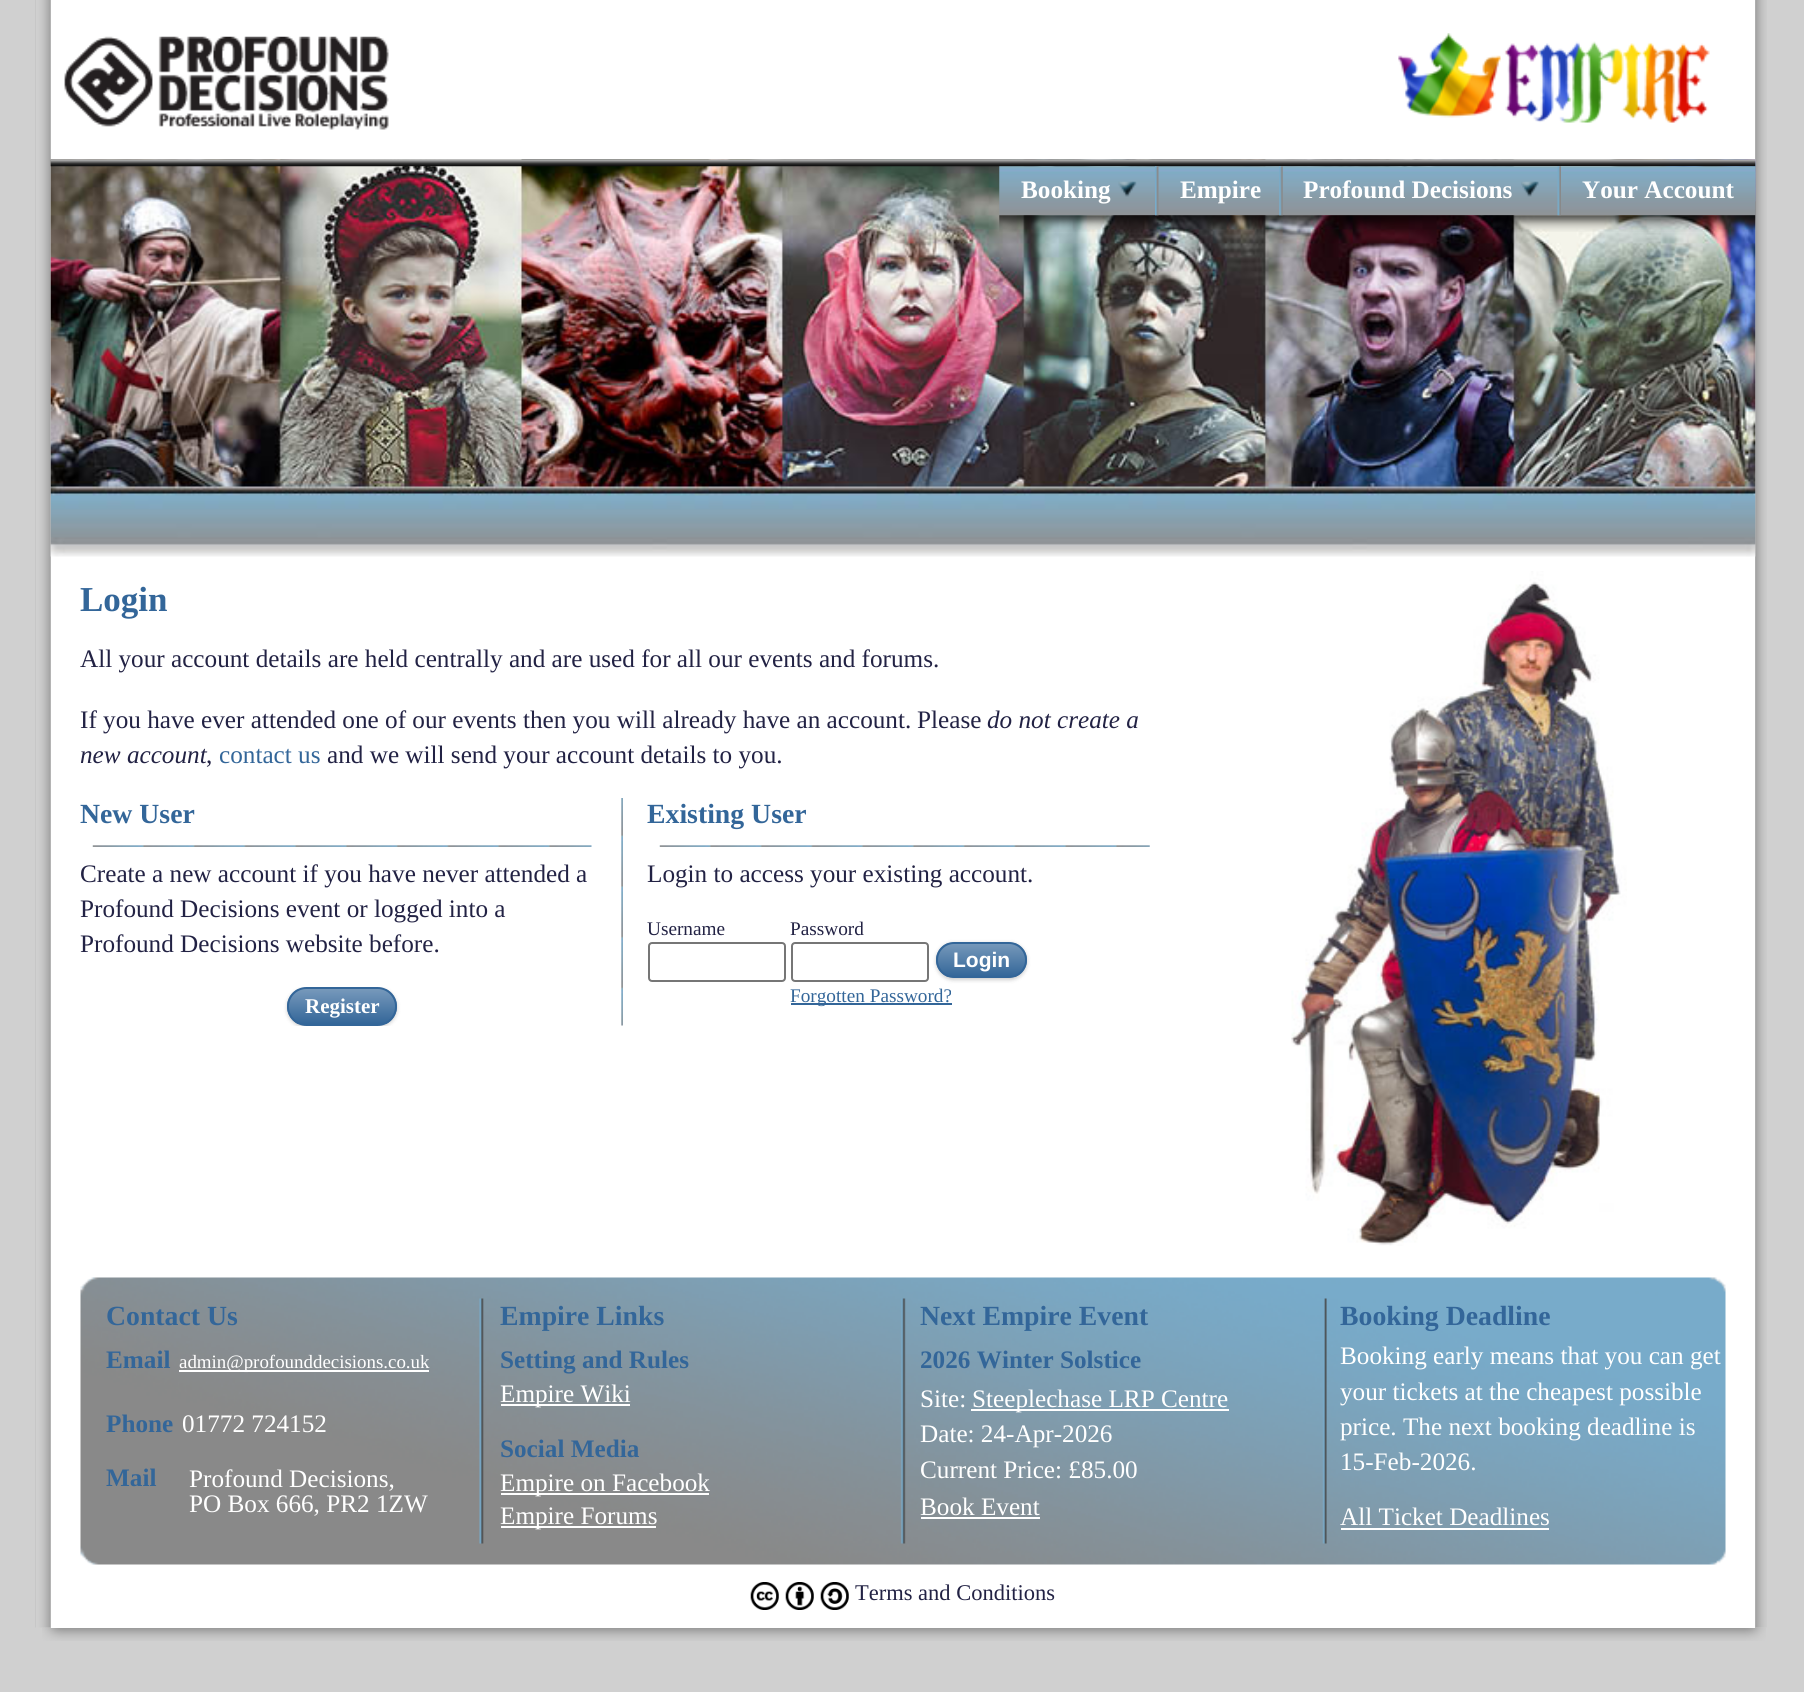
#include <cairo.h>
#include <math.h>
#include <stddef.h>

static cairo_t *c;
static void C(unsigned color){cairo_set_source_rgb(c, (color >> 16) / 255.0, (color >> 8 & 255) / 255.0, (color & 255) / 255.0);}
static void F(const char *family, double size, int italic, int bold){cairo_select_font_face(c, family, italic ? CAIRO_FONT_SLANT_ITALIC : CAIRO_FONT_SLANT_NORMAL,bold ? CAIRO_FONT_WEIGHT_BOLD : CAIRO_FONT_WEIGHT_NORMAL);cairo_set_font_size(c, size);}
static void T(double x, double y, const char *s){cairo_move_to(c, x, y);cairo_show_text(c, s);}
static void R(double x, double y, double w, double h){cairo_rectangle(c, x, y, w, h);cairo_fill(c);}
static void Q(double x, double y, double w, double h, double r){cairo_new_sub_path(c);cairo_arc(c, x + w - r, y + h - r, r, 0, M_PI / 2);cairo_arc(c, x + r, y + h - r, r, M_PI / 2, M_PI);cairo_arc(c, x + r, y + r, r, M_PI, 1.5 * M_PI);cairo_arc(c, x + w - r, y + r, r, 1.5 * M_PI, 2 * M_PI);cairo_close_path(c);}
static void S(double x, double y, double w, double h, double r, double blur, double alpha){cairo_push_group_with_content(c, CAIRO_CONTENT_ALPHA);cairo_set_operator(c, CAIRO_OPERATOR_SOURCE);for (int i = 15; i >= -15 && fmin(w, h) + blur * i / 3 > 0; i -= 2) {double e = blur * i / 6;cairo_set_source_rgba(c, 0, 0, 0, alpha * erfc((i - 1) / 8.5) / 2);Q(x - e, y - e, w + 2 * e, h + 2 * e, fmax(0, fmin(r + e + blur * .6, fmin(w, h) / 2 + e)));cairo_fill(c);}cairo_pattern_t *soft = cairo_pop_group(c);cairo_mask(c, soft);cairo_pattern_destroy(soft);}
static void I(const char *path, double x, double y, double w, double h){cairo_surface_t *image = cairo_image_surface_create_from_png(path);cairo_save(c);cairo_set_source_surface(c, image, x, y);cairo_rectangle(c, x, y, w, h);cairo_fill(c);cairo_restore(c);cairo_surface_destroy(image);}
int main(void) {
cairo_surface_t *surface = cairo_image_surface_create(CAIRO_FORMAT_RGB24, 1804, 1692);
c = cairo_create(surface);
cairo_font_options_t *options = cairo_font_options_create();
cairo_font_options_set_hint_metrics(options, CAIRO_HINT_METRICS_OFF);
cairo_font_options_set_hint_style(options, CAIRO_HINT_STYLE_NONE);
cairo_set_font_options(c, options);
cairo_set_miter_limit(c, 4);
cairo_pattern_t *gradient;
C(0xd0d0d0);
cairo_paint(c);
I("1.png",42,1627,1724,14);
I("2.png",1755,0,12,1628);
I("3.png",35,0,16,1628);
C(0xffffff);
R(51,0,1704,1628);
I("4.png",64,36,325,94);
I("5.png",1398,33,312,90);
I("6.png",50,159,1706,398);
I("7.png",50,159,1706,8);
I("8.png",999,166,757,50);
I("14.png",999,215,757,17);
I("9.png",1155,166,4,50);
F("Liberation Serif",25.2,0,1);
T(1021,198,"Booking");
I("10.png",1118,181,19,16);
I("11.png",1279,166,4,50);
T(1180,198,"Empire");
I("12.png",1557,166,4,50);
T(1303,198,"Profound Decisions");
I("13.png",1521,181,18,16);
T(1582,198,"Your Account");
F("Liberation Serif",35,0,1);
C(0x336699);
T(80,611,"Login");
F("Liberation Serif",25.2,0,0);
C(0x222244);
T(80,667,"All your account details are held centrally and are used for all our events and forums.");
T(80,728,"If you have ever attended one of our events then you will already have an account.");
T(917,728,"Please");
F("Liberation Serif",25.2,1,0);
T(987,728,"do not create a");
T(80,763,"new account");
F("Liberation Serif",25.2,0,0);
T(206,763,",");
C(0x336699);
T(219,763,"contact us");
C(0x222244);
T(327,763,"and we will send your account details to you.");
I("15.png",621,798,2,228);
F("Liberation Serif",27.75,0,1);
C(0x336699);
T(80,823,"New User");
I("16.png",92,845,500,2);
F("Liberation Serif",25.2,0,0);
C(0x222244);
T(80,882,"Create a new account if you have never attended a");
T(80,917,"Profound Decisions event or logged into a");
T(80,952,"Profound Decisions website before.");
cairo_save(c);
cairo_rectangle(c,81,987,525,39);
cairo_clip(c);
C(0x000000);
S(287,989,110,38,19,2,.2);
cairo_restore(c);
cairo_save(c);
Q(287,987,110,39,19.5);
cairo_clip(c);
gradient = cairo_pattern_create_linear(289,989,289,1024);
cairo_pattern_add_color_stop_rgba(gradient,0,0.467,0.6,0.733,1);
cairo_pattern_add_color_stop_rgba(gradient,1,0.2,0.4,0.6,1);
cairo_set_source(c,gradient);
cairo_pattern_destroy(gradient);
R(287,989,110,35);
cairo_restore(c);
Q(288,988,108,37,18.5);
C(0x336699);
cairo_stroke(c);
F("Liberation Serif",21,0,1);
C(0xffffff);
T(305,1013,"Register");
F("Liberation Serif",27.75,0,1);
C(0x336699);
T(647,823,"Existing User");
I("17.png",659,845,491,2);
F("Liberation Serif",25.2,0,0);
C(0x222244);
T(647,882,"Login to access your existing account.");
F("Liberation Serif",19.25,0,0);
T(647,935,"Username");
T(790,935,"Password");
Q(649,943,136,38,3);
C(0x767676);
cairo_stroke(c);
Q(792,943,136,38,3);
cairo_stroke(c);
C(0x000000);
S(936,943,91,37,18.5,2,.2);
cairo_save(c);
Q(936,942,91,36,18);
cairo_clip(c);
gradient = cairo_pattern_create_linear(938,943,938,977);
cairo_pattern_add_color_stop_rgba(gradient,0,0.467,0.6,0.733,1);
cairo_pattern_add_color_stop_rgba(gradient,1,0.2,0.4,0.6,1);
cairo_set_source(c,gradient);
cairo_pattern_destroy(gradient);
R(936,943,91,34);
cairo_restore(c);
Q(937,943,89,34,17);
C(0x336699);
cairo_stroke(c);
F("Liberation Sans",21,0,1);
C(0xffffff);
T(953,967,"Login");
C(0x336699);
R(791,1003,161,2);
F("Liberation Serif",19.25,0,0);
T(790,1002,"Forgotten Password?");
I("18.png",1291,571,336,675);
I("19.png",80,1277,1646,288);
F("Liberation Serif",27.75,0,1);
T(106,1325,"Contact Us");
F("Liberation Serif",25.2,0,1);
T(106,1368,"Email");
C(0xffffff);
R(179,1370,250,2);
F("Liberation Serif",18.9,0,0);
T(179,1368,"admin@profounddecisions.co.uk");
F("Liberation Serif",25.2,0,1);
C(0x336699);
T(106,1432,"Phone");
F("Liberation Serif",25.2,0,0);
C(0xffffff);
T(182,1432,"01772 724152");
F("Liberation Serif",25.2,0,1);
C(0x336699);
T(106,1486,"Mail");
F("Liberation Serif",25.2,0,0);
C(0xffffff);
T(189,1487,"Profound Decisions,");
T(189,1512,"PO Box 666, PR2 1ZW");
F("Liberation Serif",27.75,0,1);
C(0x336699);
T(500,1325,"Empire Links");
F("Liberation Serif",25.2,0,1);
T(500,1368,"Setting and Rules");
C(0xffffff);
R(501,1404,129,2);
F("Liberation Serif",25.2,0,0);
T(500,1402,"Empire Wiki");
F("Liberation Serif",25.2,0,1);
C(0x336699);
T(500,1457,"Social Media");
C(0xffffff);
R(501,1493,208,2);
F("Liberation Serif",25.2,0,0);
T(500,1491,"Empire on Facebook");
R(501,1526,155,2);
T(500,1524,"Empire Forums");
F("Liberation Serif",27.75,0,1);
C(0x336699);
T(920,1325,"Next Empire Event");
F("Liberation Serif",25.2,0,1);
T(920,1368,"2026 Winter Solstice");
F("Liberation Serif",25.2,0,0);
C(0xffffff);
T(920,1407,"Site:");
R(971,1409,258,2);
T(972,1407,"Steeplechase LRP Centre");
T(920,1442,"Date: 24-Apr-2026");
T(920,1478,"Current Price: £85.00");
T(920,1515,"Book Event");
R(921,1517,119,2);
F("Liberation Serif",27.75,0,1);
C(0x336699);
T(1340,1325,"Booking Deadline");
F("Liberation Serif",25.2,0,0);
C(0xffffff);
T(1340,1364,"Booking early means that you can get");
T(1340,1400,"your tickets at the cheapest possible");
T(1340,1435,"price. The next booking deadline is");
T(1340,1470,"15-Feb-2026.");
T(1340,1525,"All Ticket Deadlines");
R(1341,1528,208,2);
I("20.png",750,1582,29,28);
I("21.png",785,1582,29,28);
I("22.png",820,1582,29,28);
F("Liberation Serif",22.5,0,0);
C(0x222244);
T(855,1600,"Terms and Conditions");
cairo_surface_write_to_png(surface, "o.png");
cairo_font_options_destroy(options);
cairo_destroy(c);
cairo_surface_destroy(surface);
return 0;
}
